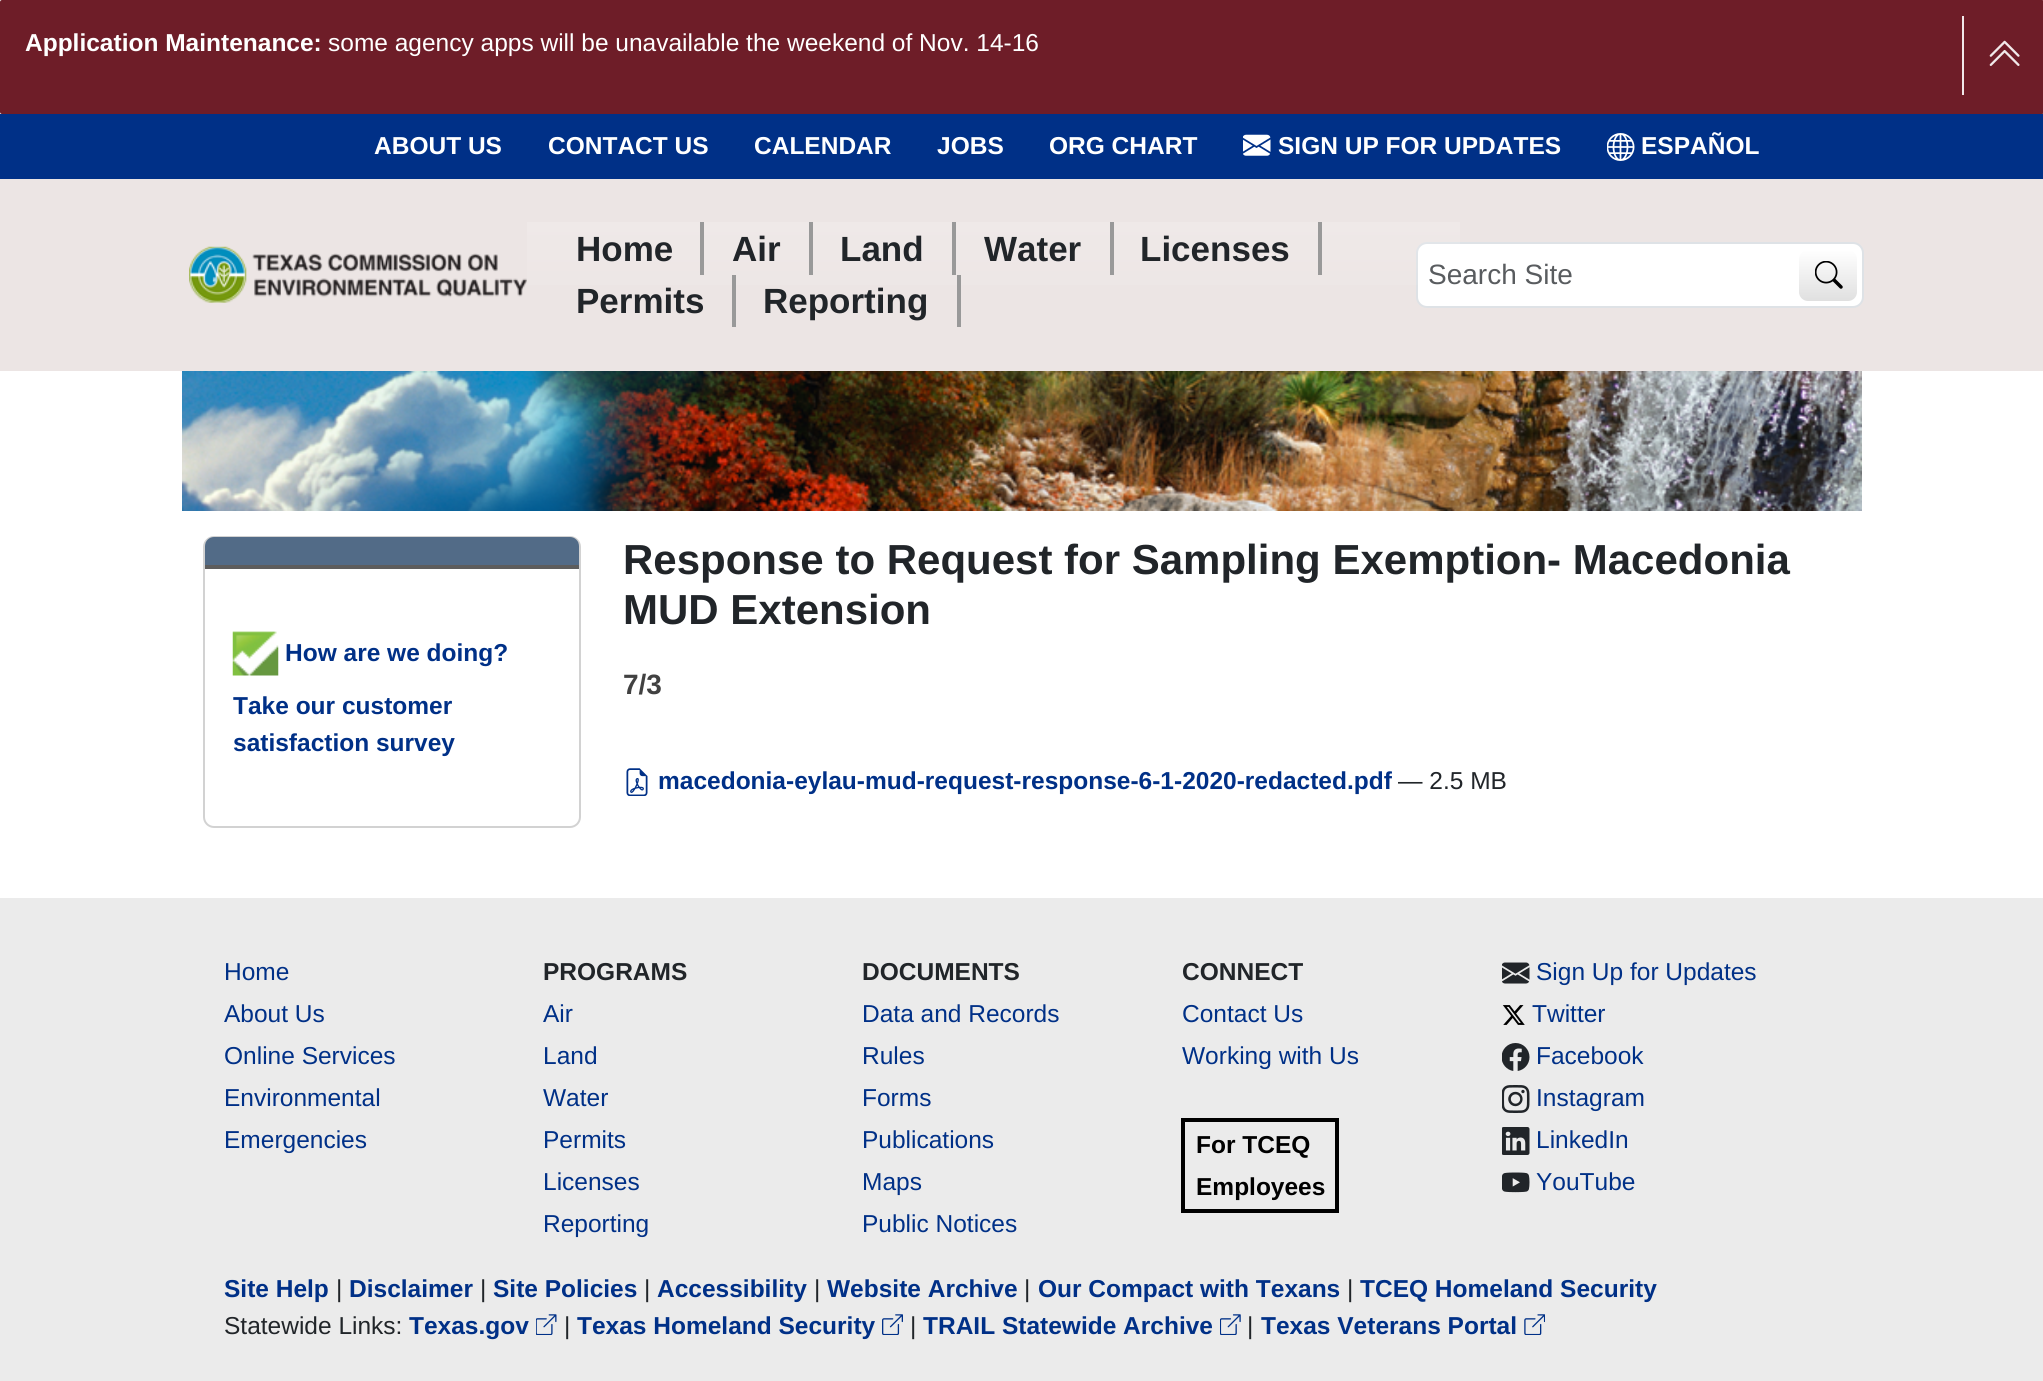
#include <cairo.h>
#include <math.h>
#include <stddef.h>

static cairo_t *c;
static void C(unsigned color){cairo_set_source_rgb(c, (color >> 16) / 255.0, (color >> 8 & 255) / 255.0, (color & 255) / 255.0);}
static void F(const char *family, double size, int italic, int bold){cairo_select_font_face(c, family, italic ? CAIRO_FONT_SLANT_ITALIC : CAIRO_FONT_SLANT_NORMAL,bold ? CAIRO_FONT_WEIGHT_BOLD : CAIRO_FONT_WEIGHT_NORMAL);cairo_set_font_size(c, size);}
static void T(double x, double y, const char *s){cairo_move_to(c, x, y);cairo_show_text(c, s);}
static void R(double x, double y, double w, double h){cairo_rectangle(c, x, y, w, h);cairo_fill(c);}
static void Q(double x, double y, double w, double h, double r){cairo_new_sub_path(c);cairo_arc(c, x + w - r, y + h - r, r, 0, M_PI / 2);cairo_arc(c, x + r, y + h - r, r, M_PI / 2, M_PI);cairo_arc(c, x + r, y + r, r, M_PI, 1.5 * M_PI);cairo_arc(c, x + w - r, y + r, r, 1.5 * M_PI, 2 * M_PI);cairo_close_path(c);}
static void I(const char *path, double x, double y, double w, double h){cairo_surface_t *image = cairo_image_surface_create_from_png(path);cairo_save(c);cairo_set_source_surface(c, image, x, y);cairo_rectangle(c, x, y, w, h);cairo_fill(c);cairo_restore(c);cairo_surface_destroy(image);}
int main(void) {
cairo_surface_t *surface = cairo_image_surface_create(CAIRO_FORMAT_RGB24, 2043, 1381);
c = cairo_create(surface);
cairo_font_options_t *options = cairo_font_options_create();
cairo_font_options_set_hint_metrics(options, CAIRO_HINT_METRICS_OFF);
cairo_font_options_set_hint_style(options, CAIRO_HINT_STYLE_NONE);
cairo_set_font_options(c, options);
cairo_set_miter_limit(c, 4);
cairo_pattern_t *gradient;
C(0xffffff);
cairo_paint(c);
C(0x6e1d28);
Q(0,0,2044,114,2);
cairo_fill(c);
F("Liberation Sans",24.5,0,1);
C(0xffffff);
T(25,51,"Application Maintenance:");
F("Liberation Sans",24.5,0,0);
T(328,51,"some agency apps will be unavailable the weekend of Nov. 14-16");
I("1.png",1989,40,31,26);
C(0xf1e8ea);
R(1962,16,2,79);
C(0x003087);
R(0,114,2043,65);
F("Liberation Sans",24.5,0,1);
C(0xffffff);
T(374,154,"ABOUT US");
T(548,154,"CONTACT US");
T(754,154,"CALENDAR");
T(937,154,"JOBS");
T(1049,154,"ORG CHART");
I("2.png",1243,134,28,22);
T(1278,154,"SIGN UP FOR UPDATES");
I("3.png",1607,133,28,28);
T(1641,154,"ESPAÑOL");
C(0xece5e4);
R(0,179,2043,192);
I("4.png",189,246,338,57);
C(0xffffff);
Q(1417,243,446,64,10);
cairo_fill_preserve(c);
C(0xdee2e6);
cairo_stroke(c);
gradient = cairo_pattern_create_linear(993,222,993,327);
cairo_pattern_add_color_stop_rgba(gradient,0,1,1,1,.15);
cairo_pattern_add_color_stop_rgba(gradient,1,1,1,1,0);
cairo_set_source(c,gradient);
cairo_pattern_destroy(gradient);
R(527,222,933,63);
C(0x999999);
R(700,222,4,53);
F("Liberation Sans",35,0,1);
C(0x212529);
T(576,261,"Home");
C(0x999999);
R(809,222,4,53);
C(0x212529);
T(732,261,"Air");
C(0x999999);
R(952,222,4,53);
C(0x212529);
T(840,261,"Land");
C(0x999999);
R(1110,222,4,53);
C(0x212529);
T(984,261,"Water");
C(0x999999);
R(1318,222,4,53);
C(0x212529);
T(1140,261,"Licenses");
C(0x999999);
R(732,275,4,52);
C(0x212529);
T(576,313,"Permits");
C(0x999999);
R(957,275,4,52);
C(0x212529);
T(763,313,"Reporting");
F("Liberation Sans",28,0,0);
C(0x595c5f);
T(1428,284,"Search Site");
gradient = cairo_pattern_create_linear(1828,250,1828,301);
cairo_pattern_add_color_stop_rgba(gradient,0,1,1,1,1);
cairo_pattern_add_color_stop_rgba(gradient,1,0.878,0.878,0.878,1);
cairo_set_source(c,gradient);
cairo_pattern_destroy(gradient);
Q(1799,250,58,51,9);
cairo_fill(c);
I("5.png",1815,261,28,28);
I("6.png",182,371,1680,140);
Q(204,537,376,290,10);
C(0xd2d2d2);
cairo_stroke(c);
C(0x526b87);
cairo_new_path(c);
cairo_move_to(c,214,537);
cairo_line_to(c,570,537);
cairo_curve_to(c,575,537,579,541,579,546);
cairo_line_to(c,579,569);
cairo_line_to(c,205,569);
cairo_line_to(c,205,546);
cairo_curve_to(c,205,541,209,537,214,537);
cairo_close_path(c);
cairo_fill(c);
C(0x5d5d5d);
R(205,565,374,4);
I("7.png",232,631,47,45);
F("Liberation Sans",24.5,0,1);
C(0x003087);
T(285,661,"How are we doing?");
T(233,714,"Take our customer");
T(233,751,"satisfaction survey");
F("Liberation Sans",42,0,1);
C(0x212529);
T(623,574,"Response to Request for Sampling Exemption- Macedonia");
T(623,624,"MUD Extension");
F("Liberation Sans",28,0,1);
C(0x414141);
T(623,694,"7/3");
I("8.png",626,768,22,28);
F("Liberation Sans",24.5,0,1);
C(0x003087);
T(658,789,"macedonia-eylau-mud-request-response-6-1-2020-redacted.pdf");
F("Liberation Sans",24.5,0,0);
C(0x212529);
T(1398,789,"— 2.5 MB");
C(0xebebeb);
R(0,898,2043,483);
C(0x003087);
T(224,980,"Home");
T(224,1022,"About Us");
T(224,1064,"Online Services");
T(224,1106,"Environmental");
T(224,1148,"Emergencies");
F("Liberation Sans",24.5,0,1);
C(0x212529);
T(543,980,"PROGRAMS");
F("Liberation Sans",24.5,0,0);
C(0x003087);
T(543,1022,"Air");
T(543,1064,"Land");
T(543,1106,"Water");
T(543,1148,"Permits");
T(543,1190,"Licenses");
T(543,1232,"Reporting");
F("Liberation Sans",24.5,0,1);
C(0x212529);
T(862,980,"DOCUMENTS");
F("Liberation Sans",24.5,0,0);
C(0x003087);
T(862,1022,"Data and Records");
T(862,1064,"Rules");
T(862,1106,"Forms");
T(862,1148,"Publications");
T(862,1190,"Maps");
T(862,1232,"Public Notices");
F("Liberation Sans",24.5,0,1);
C(0x212529);
T(1182,980,"CONNECT");
F("Liberation Sans",24.5,0,0);
C(0x003087);
T(1182,1022,"Contact Us");
T(1182,1064,"Working with Us");
cairo_rectangle(c,1183,1120,154,91);
C(0x000000);
cairo_set_line_width(c,4);
cairo_stroke(c);
F("Liberation Sans",24.5,0,1);
T(1196,1153,"For TCEQ");
T(1196,1195,"Employees");
I("9.png",1502,962,28,22);
F("Liberation Sans",24.5,0,0);
C(0x003087);
T(1536,980,"Sign Up for Updates");
I("10.png",1502,1005,23,20);
T(1532,1022,"Twitter");
I("11.png",1502,1043,28,28);
T(1536,1064,"Facebook");
I("12.png",1502,1085,28,28);
T(1536,1106,"Instagram");
I("13.png",1502,1127,28,28);
T(1536,1148,"LinkedIn");
I("14.png",1502,1172,28,21);
T(1536,1190,"YouTube");
F("Liberation Sans",24.5,0,1);
T(224,1297,"Site Help");
F("Liberation Sans",24.5,0,0);
C(0x212529);
T(336,1297,"|");
F("Liberation Sans",24.5,0,1);
C(0x003087);
T(349,1297,"Disclaimer");
F("Liberation Sans",24.5,0,0);
C(0x212529);
T(480,1297,"|");
F("Liberation Sans",24.5,0,1);
C(0x003087);
T(493,1297,"Site Policies");
F("Liberation Sans",24.5,0,0);
C(0x212529);
T(644,1297,"|");
F("Liberation Sans",24.5,0,1);
C(0x003087);
T(657,1297,"Accessibility");
F("Liberation Sans",24.5,0,0);
C(0x212529);
T(814,1297,"|");
F("Liberation Sans",24.5,0,1);
C(0x003087);
T(827,1297,"Website Archive");
F("Liberation Sans",24.5,0,0);
C(0x212529);
T(1024,1297,"|");
F("Liberation Sans",24.5,0,1);
C(0x003087);
T(1038,1297,"Our Compact with Texans");
F("Liberation Sans",24.5,0,0);
C(0x212529);
T(1347,1297,"|");
F("Liberation Sans",24.5,0,1);
C(0x003087);
T(1360,1297,"TCEQ Homeland Security");
F("Liberation Sans",24.5,0,0);
C(0x212529);
T(224,1334,"Statewide Links:");
F("Liberation Sans",24.5,0,1);
C(0x003087);
T(409,1334,"Texas.gov");
I("15.png",536,1314,21,21);
F("Liberation Sans",24.5,0,0);
C(0x212529);
T(564,1334,"|");
F("Liberation Sans",24.5,0,1);
C(0x003087);
T(577,1334,"Texas Homeland Security");
I("16.png",882,1314,21,21);
F("Liberation Sans",24.5,0,0);
C(0x212529);
T(910,1334,"|");
F("Liberation Sans",24.5,0,1);
C(0x003087);
T(923,1334,"TRAIL Statewide Archive");
I("17.png",1220,1314,21,21);
F("Liberation Sans",24.5,0,0);
C(0x212529);
T(1247,1334,"|");
F("Liberation Sans",24.5,0,1);
C(0x003087);
T(1261,1334,"Texas Veterans Portal");
I("18.png",1524,1314,21,21);
cairo_surface_write_to_png(surface, "o.png");
cairo_font_options_destroy(options);
cairo_destroy(c);
cairo_surface_destroy(surface);
return 0;
}
